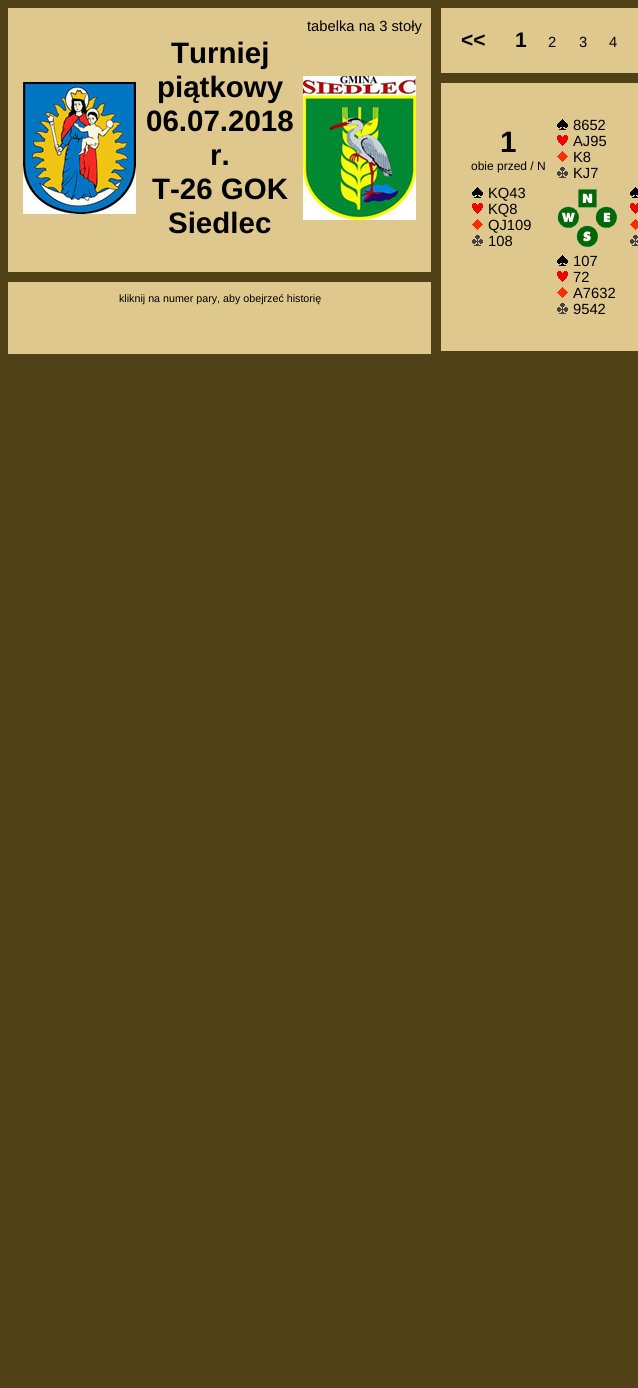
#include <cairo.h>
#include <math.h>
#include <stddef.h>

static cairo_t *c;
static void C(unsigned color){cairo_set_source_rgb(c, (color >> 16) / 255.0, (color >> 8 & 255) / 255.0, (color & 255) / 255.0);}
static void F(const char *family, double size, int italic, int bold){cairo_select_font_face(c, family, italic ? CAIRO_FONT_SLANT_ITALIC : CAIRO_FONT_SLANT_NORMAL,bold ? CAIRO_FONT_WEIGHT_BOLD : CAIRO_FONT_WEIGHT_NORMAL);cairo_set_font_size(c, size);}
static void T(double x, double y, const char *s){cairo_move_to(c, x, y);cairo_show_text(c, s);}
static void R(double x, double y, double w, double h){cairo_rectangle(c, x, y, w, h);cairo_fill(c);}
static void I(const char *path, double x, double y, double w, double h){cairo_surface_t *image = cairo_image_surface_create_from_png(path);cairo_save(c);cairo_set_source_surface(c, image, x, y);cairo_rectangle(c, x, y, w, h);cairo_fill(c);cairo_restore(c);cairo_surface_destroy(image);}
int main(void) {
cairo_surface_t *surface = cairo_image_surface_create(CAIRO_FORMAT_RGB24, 638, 1388);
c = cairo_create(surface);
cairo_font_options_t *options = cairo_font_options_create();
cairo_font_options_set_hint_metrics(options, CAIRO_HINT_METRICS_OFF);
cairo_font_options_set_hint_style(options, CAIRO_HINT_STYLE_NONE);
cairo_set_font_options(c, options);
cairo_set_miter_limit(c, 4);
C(0x504117);
cairo_paint(c);
C(0xdec88d);
R(8,8,423,264);
F("Liberation Sans",14.75,0,0);
C(0x000000);
T(307,31,"tabelka na 3 stoły");
I("1.png",23,82,113,132);
F("Liberation Sans",29.5,0,1);
T(171,63,"Turniej");
T(157,97,"piątkowy");
T(146,131,"06.07.2018");
T(210,165,"r.");
T(152,199,"T-26 GOK");
T(168,233,"Siedlec");
I("2.png",303,76,113,144);
C(0xdec88d);
R(8,282,423,72);
F("Liberation Sans",10.7,0,0);
C(0x000000);
T(119,302,"kliknij na numer pary, aby obejrzeć historię");
C(0xdec88d);
R(441,8,197,65);
F("Liberation Sans",21,0,1);
C(0x000000);
T(461,47,"<<");
T(515,47,"1");
F("Liberation Sans",14.75,0,0);
T(548,47,"2");
T(579,47,"3");
T(609,47,"4");
C(0xdec88d);
R(441,83,197,268);
F("Liberation Sans",29.5,0,1);
C(0x000000);
T(500,152,"1");
F("Liberation Sans",12,0,0);
T(471,170,"obie przed / N");
I("3.png",557,119,11,11);
F("Liberation Sans",14.75,0,0);
T(573,130,"8652");
I("4.png",557,135,11,11);
T(573,146,"AJ95");
I("5.png",557,151,11,11);
T(573,162,"K8");
I("6.png",557,167,11,11);
T(573,178,"KJ7");
I("3.png",472,187,11,11);
T(488,198,"KQ43");
I("4.png",472,203,11,11);
T(488,214,"KQ8");
I("5.png",472,219,11,11);
T(488,230,"QJ109");
I("6.png",472,235,11,11);
T(488,246,"108");
I("7.png",557,189,60,58);
I("8.png",630,187,8,11);
I("9.png",630,203,8,11);
I("10.png",630,219,8,11);
I("11.png",630,235,8,11);
I("3.png",557,255,11,11);
T(573,266,"107");
I("4.png",557,271,11,11);
T(573,282,"72");
I("5.png",557,287,11,11);
T(573,298,"A7632");
I("6.png",557,303,11,11);
T(573,314,"9542");
cairo_surface_write_to_png(surface, "o.png");
cairo_font_options_destroy(options);
cairo_destroy(c);
cairo_surface_destroy(surface);
return 0;
}
